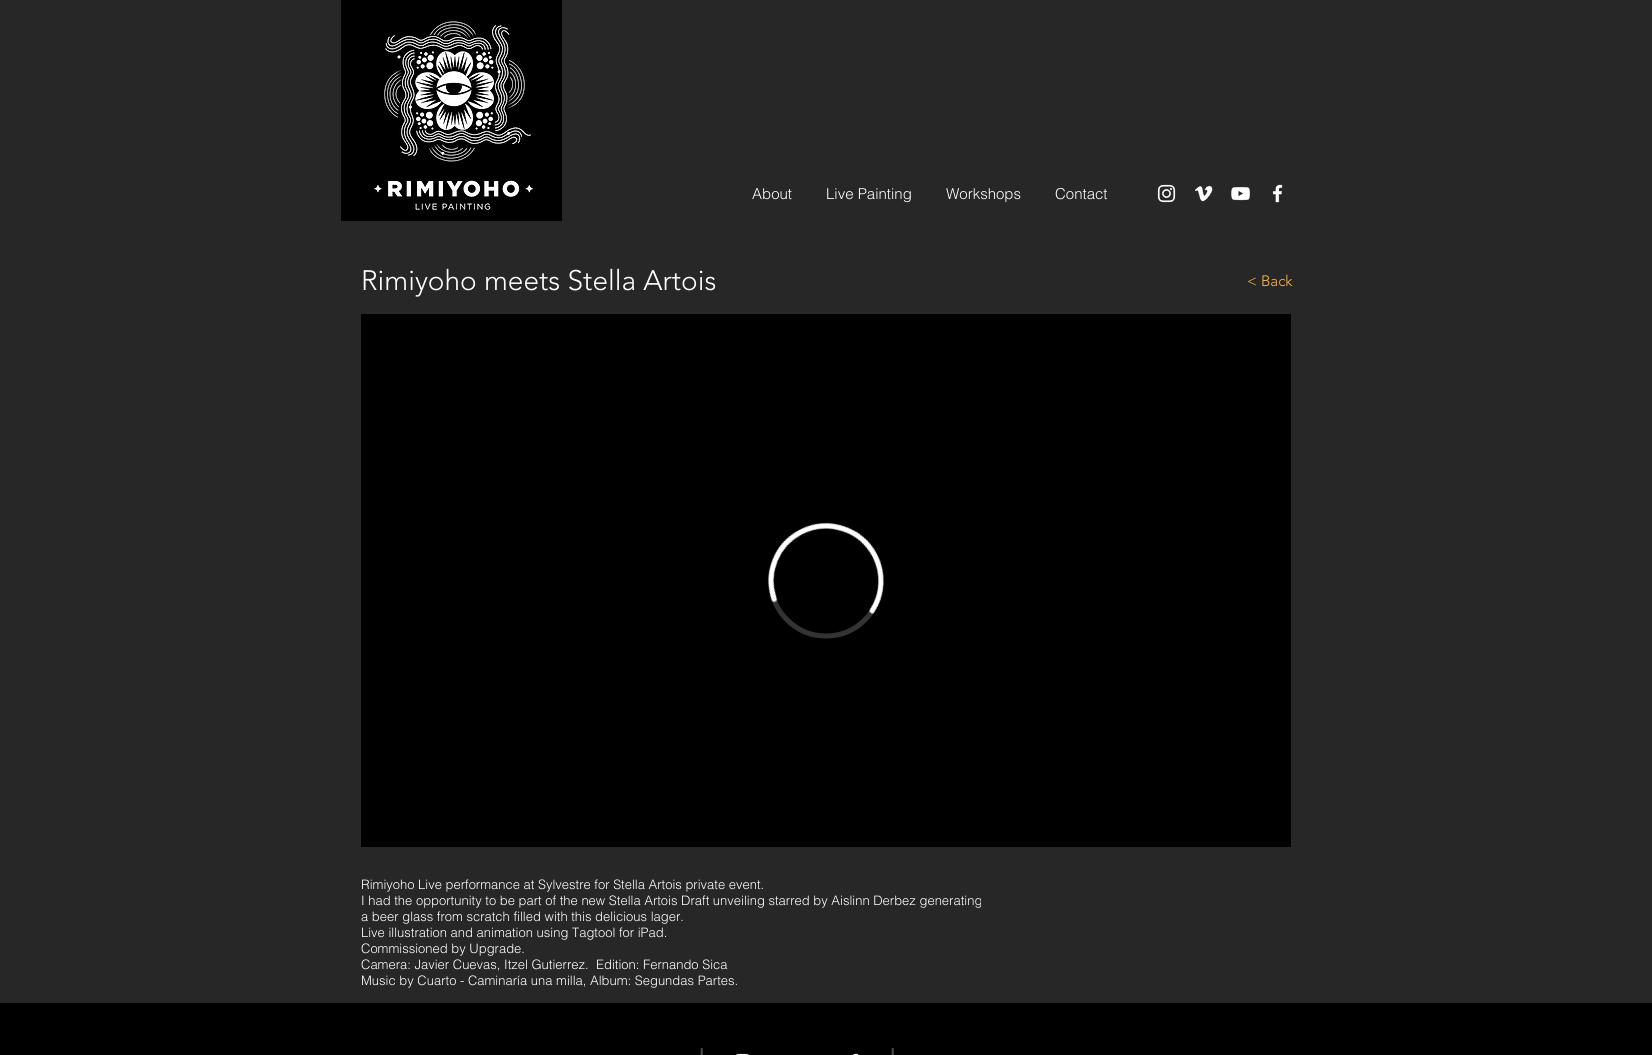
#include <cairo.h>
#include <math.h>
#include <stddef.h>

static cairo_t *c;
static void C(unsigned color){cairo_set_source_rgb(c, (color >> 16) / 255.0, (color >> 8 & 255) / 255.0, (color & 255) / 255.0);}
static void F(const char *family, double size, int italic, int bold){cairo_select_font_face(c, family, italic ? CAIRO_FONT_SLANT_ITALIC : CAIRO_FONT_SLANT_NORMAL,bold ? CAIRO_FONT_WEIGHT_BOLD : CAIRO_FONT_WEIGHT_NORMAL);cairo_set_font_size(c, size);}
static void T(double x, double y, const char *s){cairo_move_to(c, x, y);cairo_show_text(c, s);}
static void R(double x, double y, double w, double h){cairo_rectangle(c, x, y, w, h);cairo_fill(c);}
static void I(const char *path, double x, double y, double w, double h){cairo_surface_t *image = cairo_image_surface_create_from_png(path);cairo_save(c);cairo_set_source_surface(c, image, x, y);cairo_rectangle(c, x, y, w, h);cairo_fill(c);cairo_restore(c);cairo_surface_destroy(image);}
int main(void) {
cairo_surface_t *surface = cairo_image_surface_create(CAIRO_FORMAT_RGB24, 1652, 1055);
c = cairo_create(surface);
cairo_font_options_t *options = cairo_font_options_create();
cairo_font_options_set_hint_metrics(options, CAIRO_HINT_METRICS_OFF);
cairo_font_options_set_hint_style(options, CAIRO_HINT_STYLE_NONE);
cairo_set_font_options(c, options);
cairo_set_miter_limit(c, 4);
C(0x272727);
cairo_paint(c);
I("1.png",341,0,221,221);
F("helvetica Light",15,0,0);
C(0xffffff);
T(752,199,"About");
T(826,199,"Live Painting");
T(946,199,"Workshops");
T(1055,199,"Contact");
I("2.png",1157,184,19,19);
I("3.png",1194,186,19,16);
I("4.png",1231,187,19,14);
I("5.png",1272,184,11,19);
F("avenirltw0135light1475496 Light",28,0,0);
T(361,290,"Rimiyoho meets Stella Artois");
F("avenirltw0135light1475496 Light",15,0,0);
C(0xffb84d);
T(1247,286,"< Back");
I("6.png",361,314,930,533);
F("helvetica Light",13,0,0);
C(0xffffff);
T(361,889,"Rimiyoho Live performance at Sylvestre for Stella Artois private event.");
T(361,905,"I had the opportunity to be part of the new Stella Artois Draft unveiling starred by Aislinn Derbez generating");
T(361,921,"a beer glass from scratch filled with this delicious lager.");
T(361,937,"Live illustration and animation using Tagtool for iPad.");
T(361,953,"Commissioned by Upgrade.");
T(361,969,"Camera: Javier Cuevas, Itzel Gutierrez.");
T(596,969,"Edition: Fernando Sica");
T(361,985,"Music by Cuarto - Caminaría una milla, Album: Segundas Partes.");
C(0x000000);
R(0,1003,1652,52);
C(0x1a1a1a);
cairo_new_path(c);
cairo_move_to(c,701.5,1048);
cairo_curve_to(c,700,1049,701,1053.5,701,1053.5);
cairo_line_to(c,701,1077.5);
cairo_line_to(c,701.5,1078);
cairo_line_to(c,700,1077.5);
cairo_line_to(c,700,1048.5);
cairo_curve_to(c,700.5,1048,701,1048,701.5,1048);
cairo_close_path(c);
cairo_fill(c);
C(0x4e4e4e);
cairo_new_path(c);
cairo_move_to(c,703,1049);
cairo_line_to(c,703,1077);
cairo_line_to(c,702.5,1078);
cairo_curve_to(c,702,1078,701.5,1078,701,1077.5);
cairo_line_to(c,701,1048.5);
cairo_curve_to(c,701.5,1047.5,703,1048,703,1049);
cairo_close_path(c);
cairo_fill(c);
cairo_set_source_rgba(c,0,0,0,0.25);
cairo_new_path(c);
cairo_move_to(c,702,1049);
cairo_line_to(c,702,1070.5);
cairo_curve_to(c,702,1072.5,702.5,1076,701.5,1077.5);
cairo_curve_to(c,702,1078,702.5,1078,703,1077.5);
cairo_line_to(c,703,1049);
cairo_curve_to(c,703,1048,702,1048,701.5,1048.5);
cairo_close_path(c);
cairo_fill(c);
I("7.png",736,1053,13,2);
I("8.png",853,1053,6,2);
C(0x1a1a1a);
cairo_new_path(c);
cairo_move_to(c,892.5,1048);
cairo_curve_to(c,891,1049,892,1053.5,892,1053.5);
cairo_line_to(c,892,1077.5);
cairo_line_to(c,892.5,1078);
cairo_line_to(c,891,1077.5);
cairo_line_to(c,891,1048.5);
cairo_curve_to(c,891.5,1048,892,1048,892.5,1048);
cairo_close_path(c);
cairo_fill(c);
C(0x4e4e4e);
cairo_new_path(c);
cairo_move_to(c,894,1049);
cairo_line_to(c,894,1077);
cairo_line_to(c,893.5,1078);
cairo_curve_to(c,893,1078,892.5,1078,892,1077.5);
cairo_line_to(c,892,1048.5);
cairo_curve_to(c,892.5,1047.5,894,1048,894,1049);
cairo_close_path(c);
cairo_fill(c);
cairo_set_source_rgba(c,0,0,0,0.25);
cairo_new_path(c);
cairo_move_to(c,893,1049);
cairo_line_to(c,893,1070.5);
cairo_curve_to(c,893,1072.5,893.5,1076,892.5,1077.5);
cairo_curve_to(c,893,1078,893.5,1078,894,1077.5);
cairo_line_to(c,894,1049);
cairo_curve_to(c,894,1048,893,1048,892.5,1048.5);
cairo_close_path(c);
cairo_fill(c);
cairo_surface_write_to_png(surface, "o.png");
cairo_font_options_destroy(options);
cairo_destroy(c);
cairo_surface_destroy(surface);
return 0;
}
